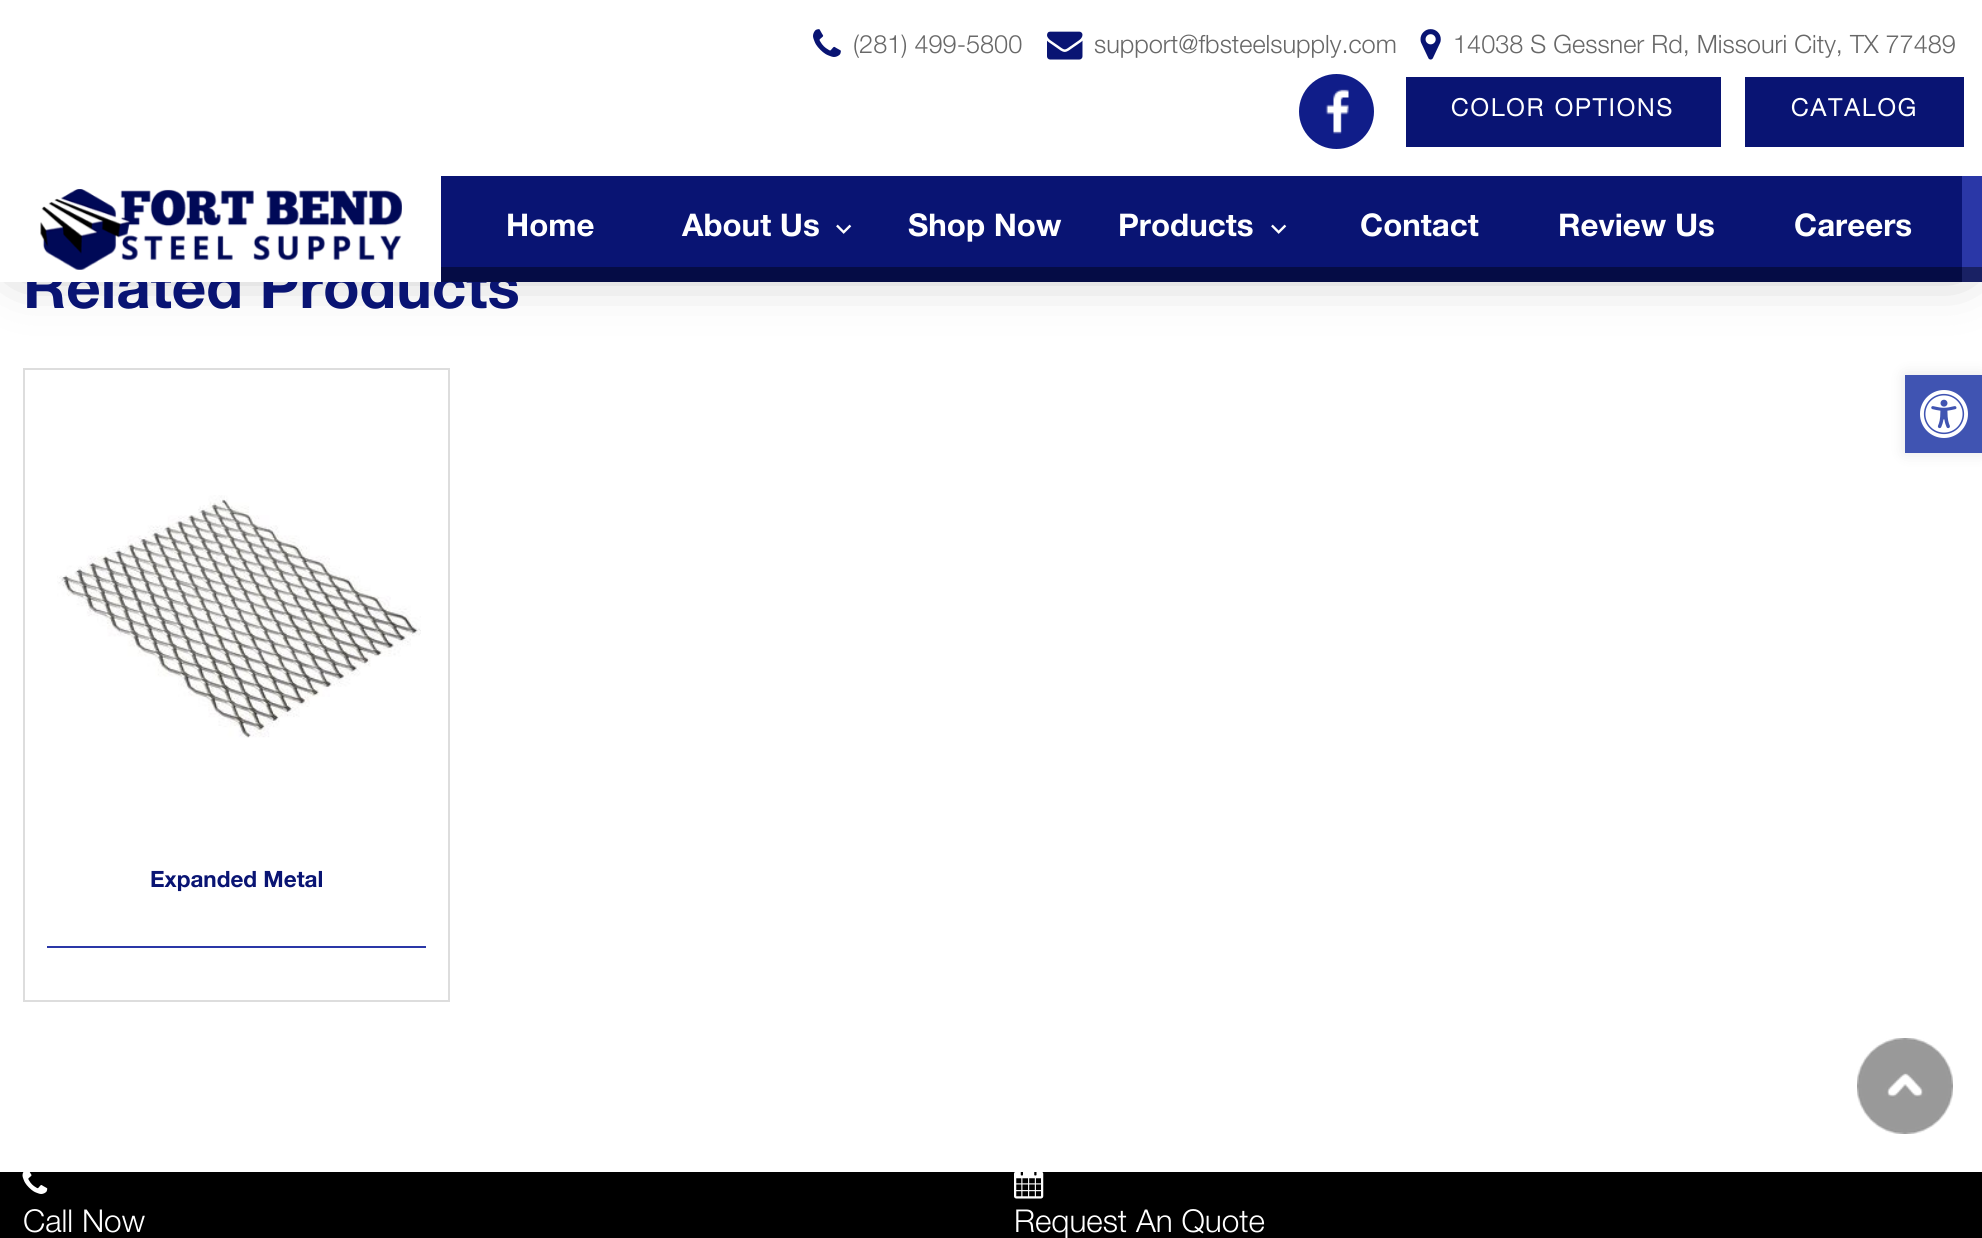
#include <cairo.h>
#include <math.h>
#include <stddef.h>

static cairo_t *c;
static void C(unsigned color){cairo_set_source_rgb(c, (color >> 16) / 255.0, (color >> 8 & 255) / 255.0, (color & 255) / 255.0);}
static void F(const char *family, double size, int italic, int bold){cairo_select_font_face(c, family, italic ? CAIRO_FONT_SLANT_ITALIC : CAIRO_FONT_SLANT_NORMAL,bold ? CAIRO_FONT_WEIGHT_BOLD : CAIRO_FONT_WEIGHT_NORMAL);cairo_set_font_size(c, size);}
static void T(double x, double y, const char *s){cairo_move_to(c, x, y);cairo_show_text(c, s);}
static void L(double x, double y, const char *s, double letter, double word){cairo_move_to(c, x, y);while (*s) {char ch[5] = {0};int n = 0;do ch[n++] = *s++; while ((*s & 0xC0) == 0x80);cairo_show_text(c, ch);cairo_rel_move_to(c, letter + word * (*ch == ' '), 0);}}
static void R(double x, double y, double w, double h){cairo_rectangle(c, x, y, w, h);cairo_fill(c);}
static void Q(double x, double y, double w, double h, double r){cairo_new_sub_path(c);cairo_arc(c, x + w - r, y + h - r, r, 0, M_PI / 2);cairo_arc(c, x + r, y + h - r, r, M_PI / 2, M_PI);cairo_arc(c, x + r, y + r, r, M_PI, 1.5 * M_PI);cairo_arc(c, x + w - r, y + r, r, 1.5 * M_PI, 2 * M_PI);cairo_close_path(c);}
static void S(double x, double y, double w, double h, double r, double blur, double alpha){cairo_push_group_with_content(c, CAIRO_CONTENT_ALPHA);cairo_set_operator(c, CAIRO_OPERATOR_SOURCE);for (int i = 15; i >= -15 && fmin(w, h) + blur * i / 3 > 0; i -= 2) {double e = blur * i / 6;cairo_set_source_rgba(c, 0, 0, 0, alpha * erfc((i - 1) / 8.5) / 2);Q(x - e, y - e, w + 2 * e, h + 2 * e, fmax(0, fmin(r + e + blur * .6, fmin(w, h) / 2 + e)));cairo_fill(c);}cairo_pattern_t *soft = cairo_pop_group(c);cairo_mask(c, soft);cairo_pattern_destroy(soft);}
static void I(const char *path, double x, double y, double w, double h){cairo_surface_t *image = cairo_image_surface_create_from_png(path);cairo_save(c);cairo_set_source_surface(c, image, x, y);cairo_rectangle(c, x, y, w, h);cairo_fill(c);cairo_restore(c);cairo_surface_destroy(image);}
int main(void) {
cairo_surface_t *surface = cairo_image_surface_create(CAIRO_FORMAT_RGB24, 1982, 1238);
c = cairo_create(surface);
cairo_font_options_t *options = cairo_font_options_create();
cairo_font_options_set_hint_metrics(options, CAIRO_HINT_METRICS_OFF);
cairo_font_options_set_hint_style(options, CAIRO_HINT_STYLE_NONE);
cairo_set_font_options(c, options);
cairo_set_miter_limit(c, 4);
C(0xffffff);
cairo_paint(c);
C(0x000000);
S(21,21,1941,240,0,30,.4);
F("Helvetica Neue",60,0,1);
C(0x091473);
T(23,308,"Related Products");
C(0xffffff);
R(0,0,1982,282);
I("1.png",40,189,362,81);
I("2.png",813,29,28,28);
F("Helvetica Neue Light",25.3,0,0);
C(0x686868);
T(853,53,"(281) 499-5800");
I("3.png",1047,31,36,29);
T(1094,53,"support@fbsteelsupply.com");
I("4.png",1420,29,21,31);
T(1453,53,"14038 S Gessner Rd, Missouri City, TX 77489");
C(0x101d89);
cairo_new_path(c);
cairo_arc(c,1336.5,111.5,37.5,0,2 * M_PI);
cairo_fill(c);
I("5.png",1325,89,24,45);
C(0x091473);
R(1406,77,315,70);
F("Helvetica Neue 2",24,0,1);
C(0xffffff);
L(1451,116,"COLOR OPTIONS",2.6,0);
C(0x091473);
R(1745,77,219,70);
C(0xffffff);
L(1791,116,"CATALOG",2.6,0);
C(0x091473);
R(441,176,1521,91);
C(0x050c45);
R(441,267,1521,15);
F("Helvetica Neue",31.25,0,1);
C(0xffffff);
T(506,236,"Home");
T(682,236,"About Us");
I("6.png",836,224,16,10);
T(908,236,"Shop Now");
T(1118,236,"Products");
I("6.png",1271,224,16,10);
T(1360,236,"Contact");
T(1558,236,"Review Us");
T(1794,236,"Careers");
C(0x2a37a7);
R(1962,176,20,91);
C(0x192164);
R(1962,267,20,15);
cairo_rectangle(c,24,369,425,632);
C(0xdddddd);
cairo_stroke(c);
C(0x2a37a7);
R(47,946,379,2);
I("7.png",57,495,364,243);
F("Helvetica Neue",22.5,0,1);
C(0x091473);
T(150,887,"Expanded Metal");
C(0x000000);
R(0,1172,1982,66);
I("8.png",22,1172,26,22);
F("Helvetica Neue Light",31.5,0,0);
C(0xffffff);
T(23,1232,"Call Now");
I("9.png",1014,1172,30,27);
T(1014,1232,"Request An Quote");
C(0x000000);
S(1905,375,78,78,0,7.5,.1);
C(0x4054b2);
R(1905,375,77,78);
I("10.png",1920,390,48,48);
I("11.png",1857,1038,96,96);
cairo_surface_write_to_png(surface, "o.png");
cairo_font_options_destroy(options);
cairo_destroy(c);
cairo_surface_destroy(surface);
return 0;
}
